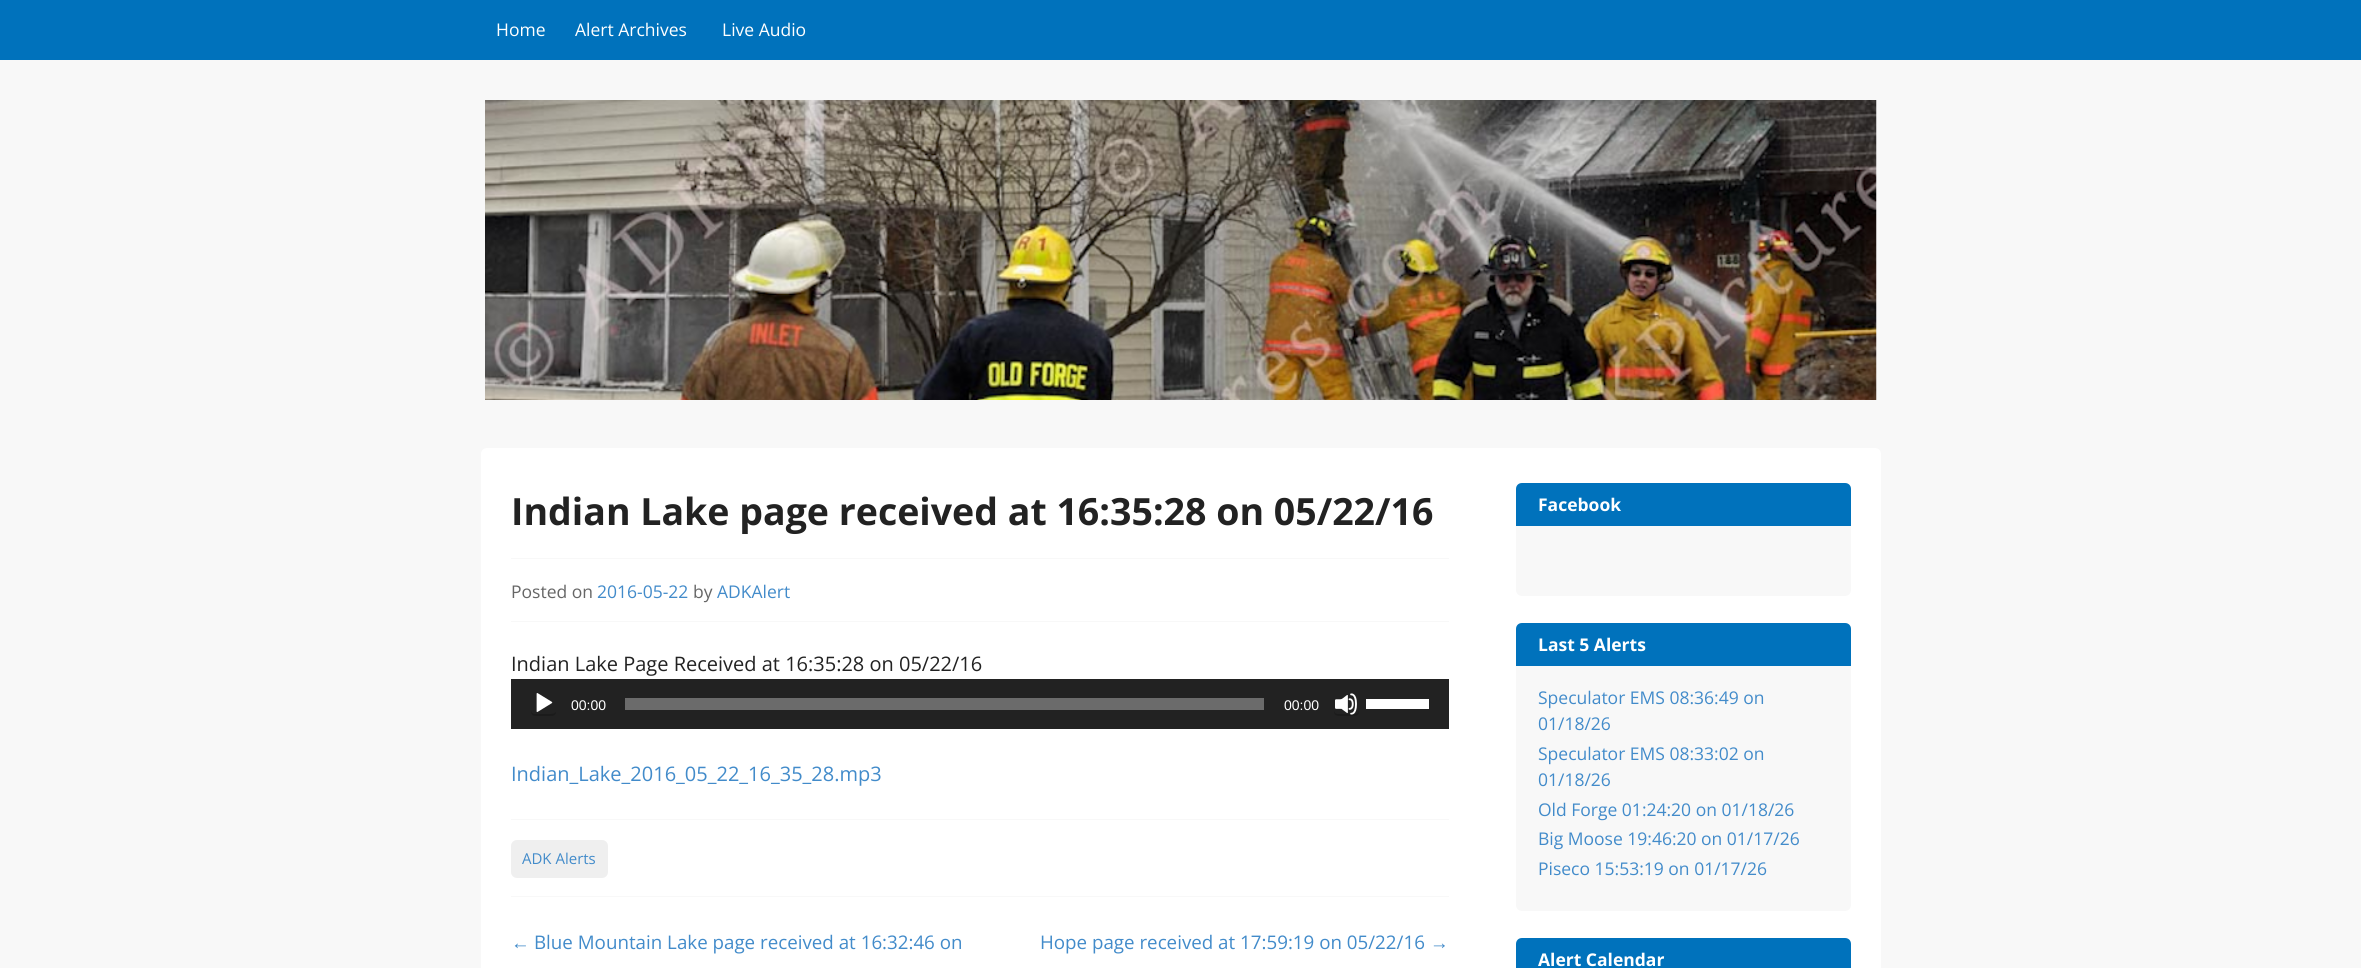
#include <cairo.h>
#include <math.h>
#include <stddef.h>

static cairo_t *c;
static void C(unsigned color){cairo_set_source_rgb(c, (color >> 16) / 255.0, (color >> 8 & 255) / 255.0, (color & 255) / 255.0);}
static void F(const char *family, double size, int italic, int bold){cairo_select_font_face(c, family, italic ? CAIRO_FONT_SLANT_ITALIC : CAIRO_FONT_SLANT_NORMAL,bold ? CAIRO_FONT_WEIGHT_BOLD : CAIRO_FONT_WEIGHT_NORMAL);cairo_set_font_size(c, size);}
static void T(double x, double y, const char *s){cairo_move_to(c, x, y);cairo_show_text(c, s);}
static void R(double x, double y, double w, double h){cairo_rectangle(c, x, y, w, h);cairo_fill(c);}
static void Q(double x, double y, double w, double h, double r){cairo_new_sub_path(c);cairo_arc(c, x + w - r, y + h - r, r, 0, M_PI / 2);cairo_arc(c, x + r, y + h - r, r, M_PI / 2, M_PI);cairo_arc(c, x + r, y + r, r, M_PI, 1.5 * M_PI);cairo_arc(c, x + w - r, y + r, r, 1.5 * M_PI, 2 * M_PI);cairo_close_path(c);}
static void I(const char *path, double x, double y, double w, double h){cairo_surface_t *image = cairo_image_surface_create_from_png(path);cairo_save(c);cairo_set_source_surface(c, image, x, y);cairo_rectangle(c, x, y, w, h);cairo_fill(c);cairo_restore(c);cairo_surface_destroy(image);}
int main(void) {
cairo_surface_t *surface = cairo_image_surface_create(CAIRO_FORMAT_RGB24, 2361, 968);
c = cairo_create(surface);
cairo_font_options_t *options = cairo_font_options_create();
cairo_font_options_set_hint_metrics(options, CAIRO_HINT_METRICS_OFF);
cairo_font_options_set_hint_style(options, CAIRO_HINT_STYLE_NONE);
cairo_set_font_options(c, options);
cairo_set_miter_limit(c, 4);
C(0xf8f8f8);
cairo_paint(c);
C(0x0072bc);
R(0,0,2361,60);
F("Open Sans",17.5,0,0);
C(0xffffff);
T(496,36,"Home");
T(575,36,"Alert Archives");
T(722,36,"Live Audio");
I("1.png",485,100,1392,300);
Q(481,448,1400,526,6);
cairo_fill(c);
C(0xf8f8f8);
R(511,558,938,1);
F("Open Sans",37.5,0,1);
C(0x222222);
T(511,525,"Indian Lake page received at 16:35:28 on 05/22/16");
C(0xf8f8f8);
R(511,621,938,1);
F("Open Sans",17.5,0,0);
C(0x666666);
T(511,598,"Posted on");
C(0x428bca);
T(597,598,"2016-05-22");
C(0x666666);
T(693,598,"by");
C(0x428bca);
T(717,598,"ADKAlert");
C(0xf8f8f8);
R(511,819,938,1);
F("Open Sans",20,0,0);
C(0x222222);
T(511,671,"Indian Lake Page Received at 16:35:28 on 05/22/16");
R(511,679,938,50);
I("2.png",536,693,17,19);
C(0x1b1b1b);
cairo_new_path(c);
cairo_move_to(c,556,711.5);
cairo_curve_to(c,555.5,713,553.5,714,550,714);
cairo_line_to(c,535,714);
cairo_curve_to(c,532.5,714,531.5,712.5,531,710.5);
cairo_curve_to(c,531,715.5,533,716,538,716);
cairo_line_to(c,549,716);
cairo_curve_to(c,552.5,716,556,716,556,711.5);
cairo_close_path(c);
cairo_fill(c);
F("Liberation Sans",14,0,0);
C(0xffffff);
T(571,710,"00:00");
C(0x6b6b6b);
R(625,698,639,12);
C(0xffffff);
T(1284,710,"00:00");
I("3.png",1335,693,22,22);
cairo_set_source_rgba(c,0,0,0,0.2);
cairo_new_path(c);
cairo_move_to(c,1359,710);
cairo_curve_to(c,1358.5,712.5,1357,714,1352,714);
cairo_line_to(c,1338,714);
cairo_curve_to(c,1335.5,714,1334.5,712.5,1334,710.5);
cairo_curve_to(c,1334,715.5,1336,716,1341,716);
cairo_line_to(c,1352,716);
cairo_curve_to(c,1357.5,716,1359,715.5,1359,710);
cairo_close_path(c);
cairo_fill(c);
C(0xffffff);
R(1366,699,63,10);
F("Open Sans",20,0,0);
C(0x428bca);
T(511,781,"Indian_Lake_2016_05_22_16_35_28.mp3");
C(0xf8f8f8);
R(511,896,938,1);
C(0xefefef);
Q(511,840,97,38,6);
cairo_fill(c);
F("Open Sans",15,0,0);
C(0x428bca);
T(522,864,"ADK Alerts");
F("Liberation Sans",18.75,0,0);
T(511,949,"←");
F("Open Sans",18.75,0,0);
T(534,949,"Blue Mountain Lake page received at 16:32:46 on");
T(1040,949,"Hope page received at 17:59:19 on 05/22/16");
F("Liberation Sans",18.75,0,0);
T(1430,949,"→");
C(0xf8f8f8);
Q(1516,483,335,113,6);
cairo_fill(c);
C(0x0072bc);
cairo_new_path(c);
cairo_move_to(c,1522,483);
cairo_line_to(c,1845,483);
cairo_curve_to(c,1848.5,483,1851,485.5,1851,489);
cairo_line_to(c,1851,526);
cairo_line_to(c,1516,526);
cairo_line_to(c,1516,489);
cairo_curve_to(c,1516,485.5,1518.5,483,1522,483);
cairo_close_path(c);
cairo_fill(c);
F("Open Sans",17.5,0,1);
C(0xffffff);
T(1538,511,"Facebook");
C(0xf8f8f8);
Q(1516,623,335,288,6);
cairo_fill(c);
C(0x0072bc);
cairo_new_path(c);
cairo_move_to(c,1522,623);
cairo_line_to(c,1845,623);
cairo_curve_to(c,1848.5,623,1851,625.5,1851,629);
cairo_line_to(c,1851,666);
cairo_line_to(c,1516,666);
cairo_line_to(c,1516,629);
cairo_curve_to(c,1516,625.5,1518.5,623,1522,623);
cairo_close_path(c);
cairo_fill(c);
C(0xffffff);
T(1538,651,"Last 5 Alerts");
F("Open Sans",17.5,0,0);
C(0x428bca);
T(1538,704,"Speculator EMS 08:36:49 on");
T(1538,730,"01/18/26");
T(1538,760,"Speculator EMS 08:33:02 on");
T(1538,786,"01/18/26");
T(1538,816,"Old Forge 01:24:20 on 01/18/26");
T(1538,845,"Big Moose 19:46:20 on 01/17/26");
T(1538,875,"Piseco 15:53:19 on 01/17/26");
C(0x0072bc);
cairo_new_path(c);
cairo_move_to(c,1522,938);
cairo_line_to(c,1845,938);
cairo_curve_to(c,1848.5,938,1851,940.5,1851,944);
cairo_line_to(c,1851,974);
cairo_line_to(c,1516,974);
cairo_line_to(c,1516,944);
cairo_curve_to(c,1516,940.5,1518.5,938,1522,938);
cairo_close_path(c);
cairo_fill(c);
F("Open Sans",17.5,0,1);
C(0xffffff);
T(1538,966,"Alert Calendar");
cairo_surface_write_to_png(surface, "o.png");
cairo_font_options_destroy(options);
cairo_destroy(c);
cairo_surface_destroy(surface);
return 0;
}
